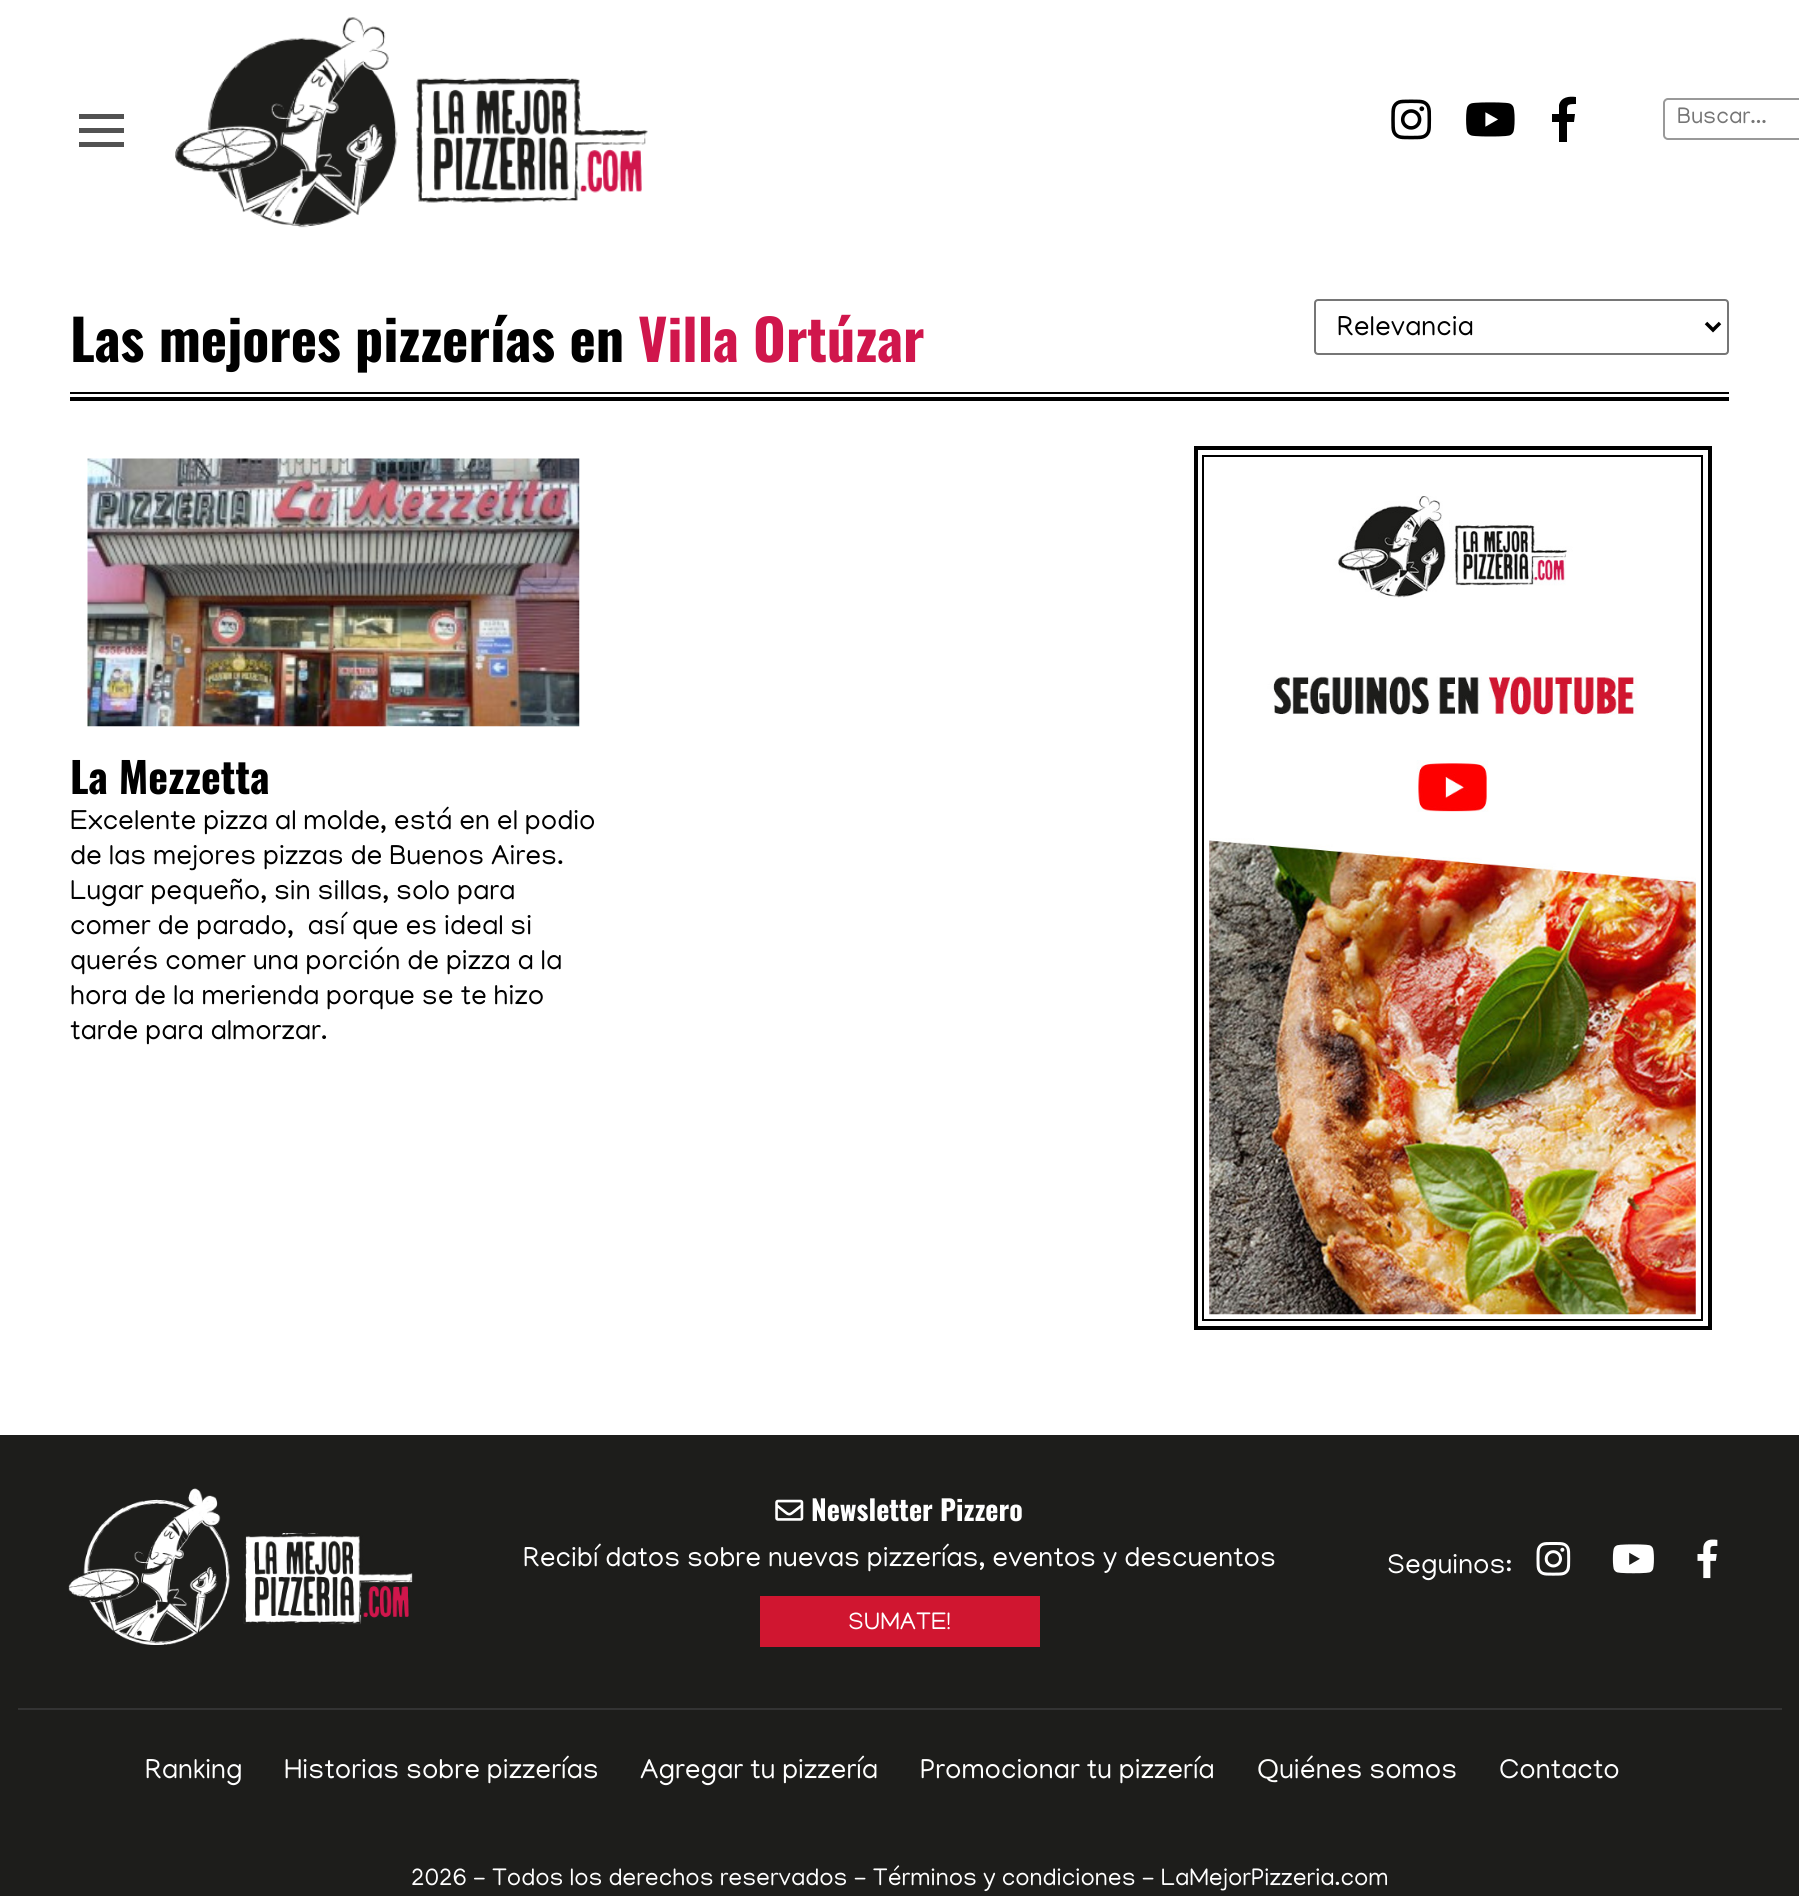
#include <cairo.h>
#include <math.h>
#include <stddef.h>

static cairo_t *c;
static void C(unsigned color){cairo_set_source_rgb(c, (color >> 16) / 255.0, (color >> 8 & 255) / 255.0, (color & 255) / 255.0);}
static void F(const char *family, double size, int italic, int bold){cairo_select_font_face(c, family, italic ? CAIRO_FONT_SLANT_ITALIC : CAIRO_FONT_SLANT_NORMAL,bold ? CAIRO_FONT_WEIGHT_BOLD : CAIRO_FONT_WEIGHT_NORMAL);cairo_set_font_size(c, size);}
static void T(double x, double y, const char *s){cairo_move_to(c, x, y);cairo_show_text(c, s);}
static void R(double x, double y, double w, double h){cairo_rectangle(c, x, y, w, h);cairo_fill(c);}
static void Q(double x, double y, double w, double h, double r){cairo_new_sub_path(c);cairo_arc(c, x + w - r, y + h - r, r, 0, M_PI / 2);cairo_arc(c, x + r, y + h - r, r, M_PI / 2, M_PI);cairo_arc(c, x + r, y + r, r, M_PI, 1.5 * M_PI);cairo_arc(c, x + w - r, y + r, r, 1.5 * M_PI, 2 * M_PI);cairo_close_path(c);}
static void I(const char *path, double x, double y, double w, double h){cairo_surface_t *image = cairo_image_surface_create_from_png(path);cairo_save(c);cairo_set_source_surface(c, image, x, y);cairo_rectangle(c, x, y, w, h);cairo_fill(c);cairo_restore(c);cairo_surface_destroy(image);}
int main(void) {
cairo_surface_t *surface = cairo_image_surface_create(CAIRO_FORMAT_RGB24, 1799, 1896);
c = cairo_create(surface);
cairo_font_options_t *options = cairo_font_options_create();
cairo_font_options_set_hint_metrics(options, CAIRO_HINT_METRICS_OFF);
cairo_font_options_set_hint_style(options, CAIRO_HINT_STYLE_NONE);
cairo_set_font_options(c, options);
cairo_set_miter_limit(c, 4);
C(0xffffff);
cairo_paint(c);
C(0x525252);
R(79,114,45,5);
R(79,128,45,5);
R(79,142,45,5);
I("1.png",175,17,473,211);
I("2.png",1391,99,41,41);
I("3.png",1466,102,49,35);
C(0x000000);
cairo_new_path(c);
cairo_move_to(c,1559,142);
cairo_line_to(c,1559,122);
cairo_line_to(c,1552,122);
cairo_line_to(c,1552,114);
cairo_line_to(c,1559,114);
cairo_line_to(c,1559,105);
cairo_curve_to(c,1561,97,1569,96,1576,97);
cairo_line_to(c,1576,104);
cairo_curve_to(c,1566,104,1567,105,1567,114);
cairo_line_to(c,1575,114);
cairo_line_to(c,1574,122);
cairo_line_to(c,1567,122);
cairo_line_to(c,1567,142);
cairo_close_path(c);
cairo_fill(c);
Q(1664,99,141,40,4);
C(0x999999);
cairo_stroke(c);
F("Manjari",23,0,0);
C(0x757575);
T(1677,123,"Buscar...");
C(0x000000);
R(70,392,1659,2);
F("Oswald",56,0,1);
T(70,362,"Las mejores pizzerías en");
C(0xd0164c);
T(638,362,"Villa Ortúzar");
Q(1315,300,413,54,3);
C(0x767676);
cairo_stroke(c);
cairo_new_path(c);
cairo_move_to(c,1706,323);
cairo_line_to(c,1713,330);
cairo_line_to(c,1720,323);
C(0x000000);
cairo_set_line_width(c,3.5);
cairo_stroke(c);
F("Manjari",28,0,0);
T(1337,335,"Relevancia");
R(70,397,1659,4);
I("4.png",87,458,493,269);
F("Oswald",42,0,1);
T(70,794,"La Mezzetta");
F("Manjari",28,0,0);
T(70,829,"Excelente pizza al molde, está en el podio");
T(70,864,"de las mejores pizzas de Buenos Aires.");
T(70,899,"Lugar pequeño, sin sillas, solo para");
T(70,934,"comer de parado,  así que es ideal si");
T(70,969,"querés comer una porción de pizza a la");
T(70,1004,"hora de la merienda porque se te hizo");
T(70,1039,"tarde para almorzar.");
cairo_rectangle(c,1196,448,514,880);
cairo_set_line_width(c,4);
cairo_stroke(c);
cairo_rectangle(c,1203,456,499,864);
cairo_set_line_width(c,2);
cairo_stroke(c);
I("5.png",1209,496,487,819);
C(0x1d1d1b);
R(0,1435,1799,461);
I("6.png",68,1488,345,157);
I("7.png",775,1499,29,22);
F("Oswald",28,0,1);
C(0xffffff);
T(811,1521,"Newsletter Pizzero");
F("Manjari",28,0,0);
T(523,1566,"Recibí datos sobre nuevas pizzerías, eventos y descuentos");
C(0xd01630);
R(760,1596,280,51);
F("Manjari",24.5,0,0);
C(0xffffff);
T(848,1629,"SUMATE!");
F("Manjari",28,0,0);
T(1387,1573,"Seguinos:");
I("8.png",1536,1542,35,34);
I("9.png",1612,1544,42,30);
I("10.png",1697,1539,21,40);
C(0x333333);
R(18,1708,1764,2);
C(0xffffff);
T(145,1778,"Ranking");
T(284,1778,"Historias sobre pizzerías");
T(640,1778,"Agregar tu pizzería");
T(920,1778,"Promocionar tu pizzería");
T(1257,1778,"Quiénes somos");
T(1499,1778,"Contacto");
F("Manjari",24.5,0,0);
T(411,1885,"2026 - Todos los derechos reservados - Términos y condiciones - LaMejorPizzeria.com");
cairo_surface_write_to_png(surface, "o.png");
cairo_font_options_destroy(options);
cairo_destroy(c);
cairo_surface_destroy(surface);
return 0;
}
